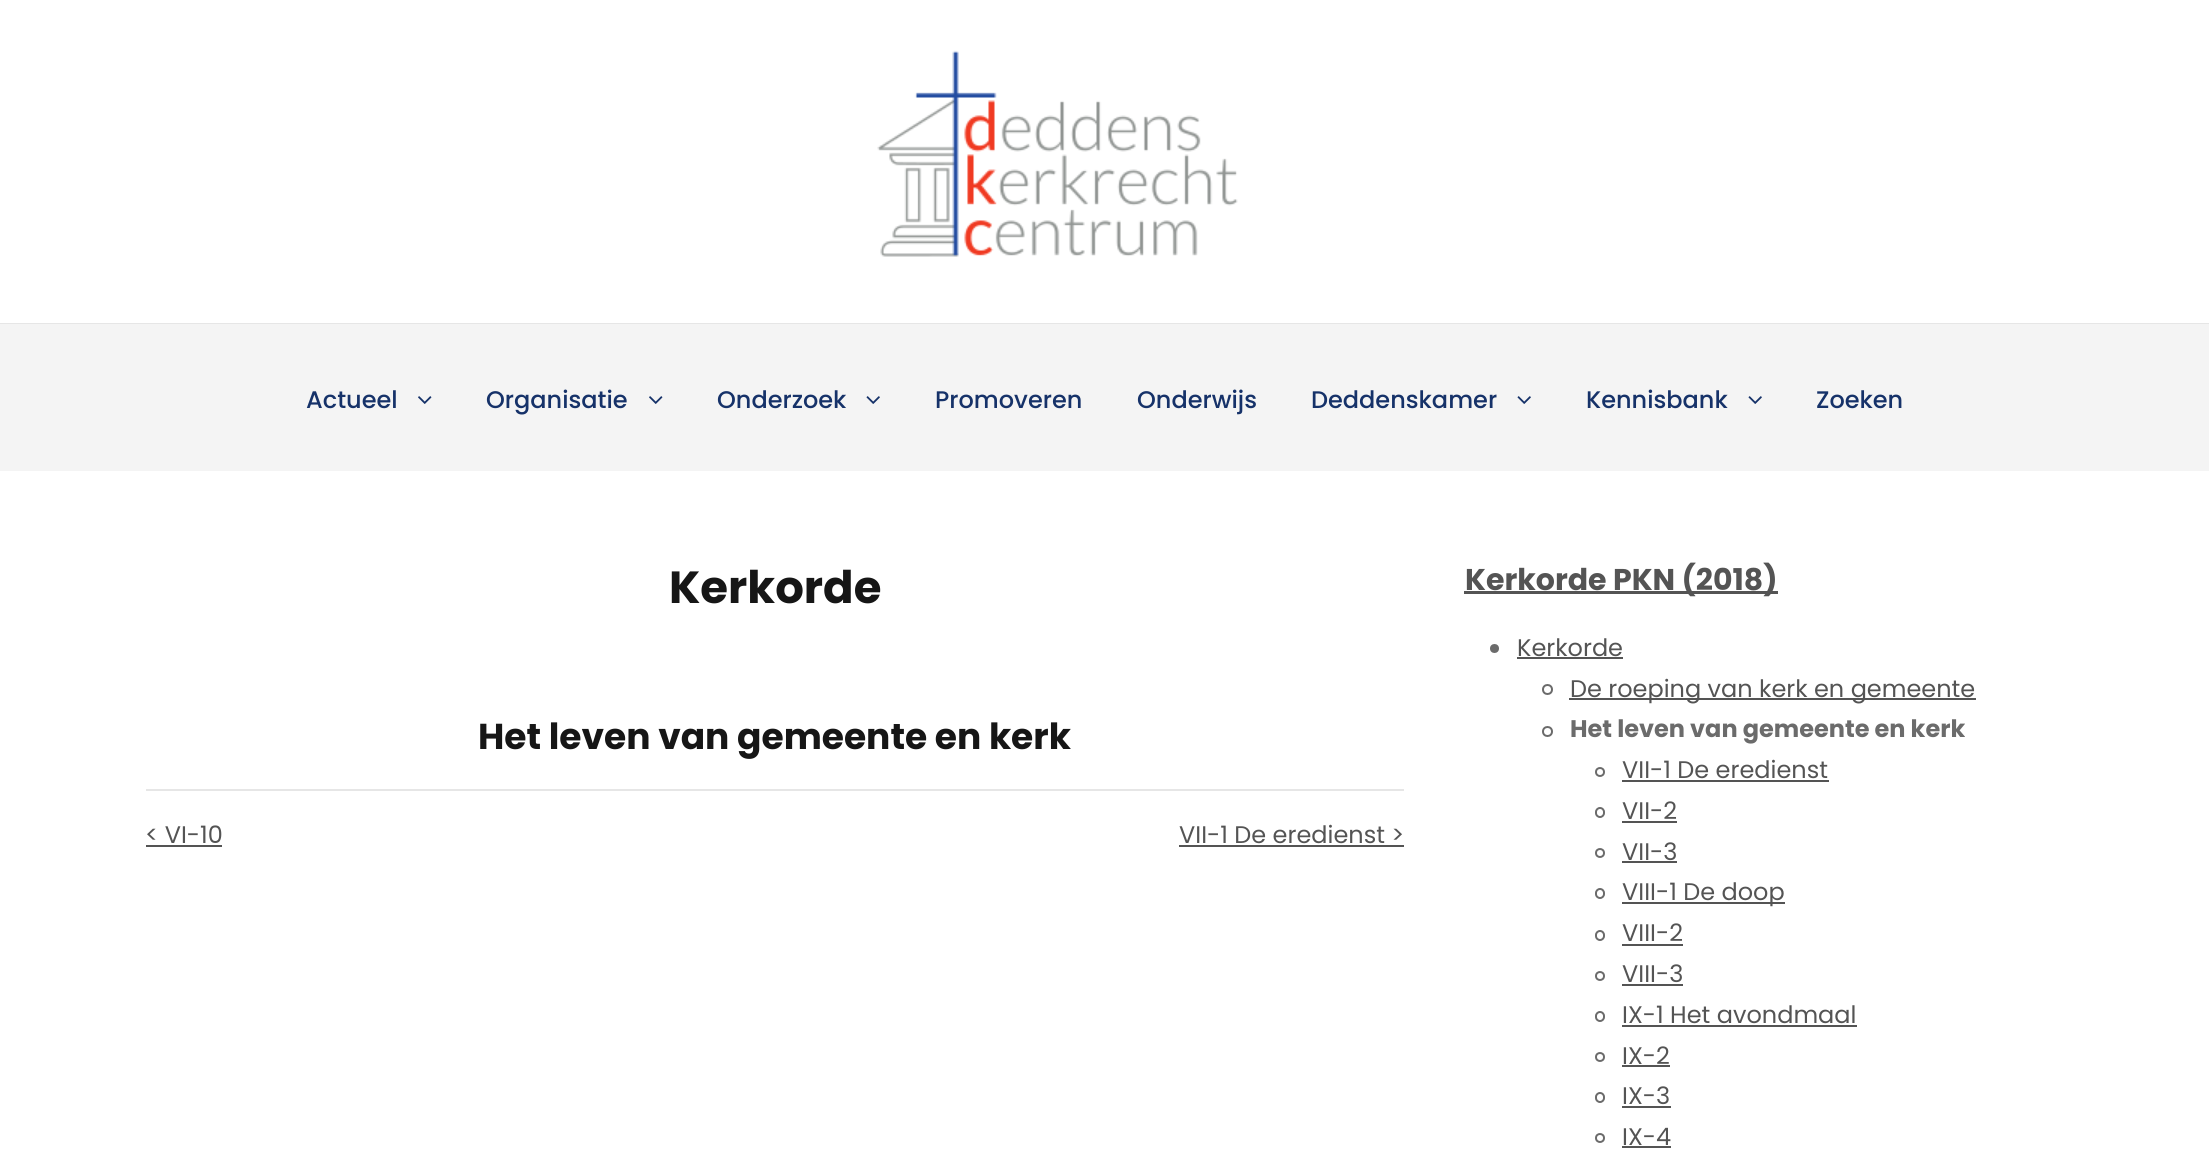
#include <cairo.h>
#include <math.h>
#include <stddef.h>

static cairo_t *c;
static void C(unsigned color){cairo_set_source_rgb(c, (color >> 16) / 255.0, (color >> 8 & 255) / 255.0, (color & 255) / 255.0);}
static void F(const char *family, double size, int italic, int bold){cairo_select_font_face(c, family, italic ? CAIRO_FONT_SLANT_ITALIC : CAIRO_FONT_SLANT_NORMAL,bold ? CAIRO_FONT_WEIGHT_BOLD : CAIRO_FONT_WEIGHT_NORMAL);cairo_set_font_size(c, size);}
static void T(double x, double y, const char *s){cairo_move_to(c, x, y);cairo_show_text(c, s);}
static void R(double x, double y, double w, double h){cairo_rectangle(c, x, y, w, h);cairo_fill(c);}
static void Q(double x, double y, double w, double h, double r){cairo_new_sub_path(c);cairo_arc(c, x + w - r, y + h - r, r, 0, M_PI / 2);cairo_arc(c, x + r, y + h - r, r, M_PI / 2, M_PI);cairo_arc(c, x + r, y + r, r, M_PI, 1.5 * M_PI);cairo_arc(c, x + w - r, y + r, r, 1.5 * M_PI, 2 * M_PI);cairo_close_path(c);}
static void I(const char *path, double x, double y, double w, double h){cairo_surface_t *image = cairo_image_surface_create_from_png(path);cairo_save(c);cairo_set_source_surface(c, image, x, y);cairo_rectangle(c, x, y, w, h);cairo_fill(c);cairo_restore(c);cairo_surface_destroy(image);}
int main(void) {
cairo_surface_t *surface = cairo_image_surface_create(CAIRO_FORMAT_RGB24, 2209, 1159);
c = cairo_create(surface);
cairo_font_options_t *options = cairo_font_options_create();
cairo_font_options_set_hint_metrics(options, CAIRO_HINT_METRICS_OFF);
cairo_font_options_set_hint_style(options, CAIRO_HINT_STYLE_NONE);
cairo_set_font_options(c, options);
cairo_set_miter_limit(c, 4);
C(0xffffff);
cairo_paint(c);
I("1.png",877,50,361,207);
C(0xe6e6e6);
R(0,323,2209,1);
C(0xf4f4f4);
R(0,324,2209,147);
F("Poppins Medium",24,0,0);
C(0x163269);
T(306,408,"Actueel");
I("2.png",418,396,14,8);
T(486,408,"Organisatie");
I("2.png",649,396,14,8);
T(717,408,"Onderzoek");
I("3.png",866,396,14,8);
T(935,408,"Promoveren");
T(1137,408,"Onderwijs");
T(1311,408,"Deddenskamer");
I("3.png",1517,396,14,8);
T(1586,408,"Kennisbank");
I("3.png",1748,396,14,8);
T(1816,408,"Zoeken");
F("Poppins",45,0,1);
C(0x161616);
T(669,603,"Kerkorde");
F("Poppins",36,0,1);
T(478,749,"Het leven van gemeente en kerk");
C(0xe6e6e6);
R(146,789,1258,2);
F("Poppins",24,0,0);
C(0x545454);
T(145,843,"< VI-10");
R(146,845,76,2);
T(1179,843,"VII-1 De eredienst >");
R(1179,845,225,2);
R(1464,591,314,3);
F("Poppins",30,0,1);
T(1465,590,"Kerkorde PKN (2018)");
C(0x6b6b6b);
cairo_new_path(c);
cairo_arc(c,1494.5,648.5,4.5,0,2 * M_PI);
cairo_fill(c);
F("Poppins",24,0,0);
C(0x545454);
T(1517,656,"Kerkorde");
R(1517,657,106,2);
cairo_new_path(c);
cairo_arc(c,1547.5,689.5,4.5,0,2 * M_PI);
C(0x6b6b6b);
cairo_stroke(c);
C(0x545454);
R(1569,698,407,2);
T(1570,697,"De roeping van kerk en gemeente");
cairo_new_path(c);
cairo_arc(c,1547.5,731.5,4.5,0,2 * M_PI);
C(0x6b6b6b);
cairo_stroke(c);
F("Poppins",24,0,1);
T(1570,737,"Het leven van gemeente en kerk");
cairo_new_path(c);
cairo_arc(c,1600,772,4,0,2 * M_PI);
cairo_stroke(c);
F("Poppins",24,0,0);
C(0x545454);
T(1622,778,"VII-1 De eredienst");
R(1622,780,207,2);
Q(1596,808,8,9,4);
C(0x6b6b6b);
cairo_stroke(c);
C(0x545454);
T(1622,819,"VII-2");
R(1622,821,55,2);
cairo_new_path(c);
cairo_arc(c,1600,853,4,0,2 * M_PI);
C(0x6b6b6b);
cairo_stroke(c);
C(0x545454);
T(1622,860,"VII-3");
R(1622,861,55,2);
Q(1596,889,8,9,4);
C(0x6b6b6b);
cairo_stroke(c);
C(0x545454);
R(1622,902,163,2);
T(1622,900,"VIII-1 De doop");
Q(1596,931,8,9,4);
C(0x6b6b6b);
cairo_stroke(c);
C(0x545454);
T(1622,941,"VIII-2");
R(1622,944,61,2);
cairo_new_path(c);
cairo_arc(c,1600,976,4,0,2 * M_PI);
C(0x6b6b6b);
cairo_stroke(c);
C(0x545454);
T(1622,982,"VIII-3");
R(1622,984,61,2);
Q(1596,1012,8,9,4);
C(0x6b6b6b);
cairo_stroke(c);
C(0x545454);
T(1622,1023,"IX-1 Het avondmaal");
R(1622,1025,235,2);
cairo_new_path(c);
cairo_arc(c,1600,1057,4,0,2 * M_PI);
C(0x6b6b6b);
cairo_stroke(c);
C(0x545454);
T(1622,1064,"IX-2");
R(1622,1065,48,2);
Q(1596,1093,8,9,4);
C(0x6b6b6b);
cairo_stroke(c);
C(0x545454);
T(1622,1104,"IX-3");
R(1622,1106,49,2);
cairo_new_path(c);
cairo_arc(c,1600,1138,4,0,2 * M_PI);
C(0x6b6b6b);
cairo_stroke(c);
C(0x545454);
T(1622,1145,"IX-4");
R(1622,1146,49,2);
cairo_surface_write_to_png(surface, "o.png");
cairo_font_options_destroy(options);
cairo_destroy(c);
cairo_surface_destroy(surface);
return 0;
}
